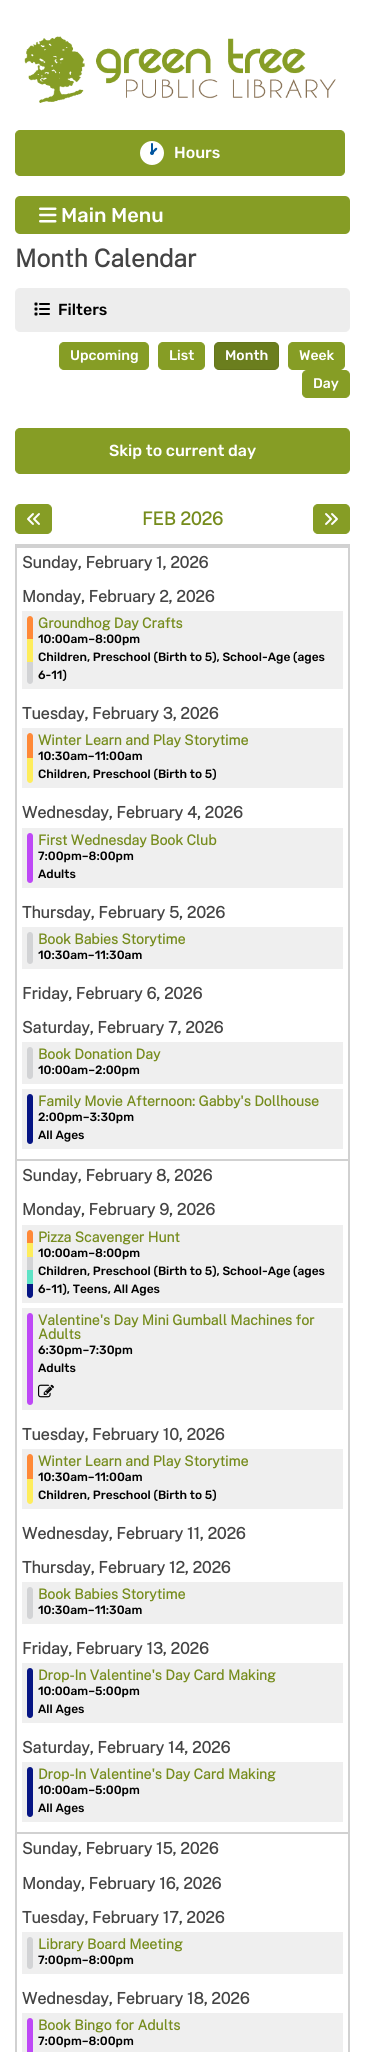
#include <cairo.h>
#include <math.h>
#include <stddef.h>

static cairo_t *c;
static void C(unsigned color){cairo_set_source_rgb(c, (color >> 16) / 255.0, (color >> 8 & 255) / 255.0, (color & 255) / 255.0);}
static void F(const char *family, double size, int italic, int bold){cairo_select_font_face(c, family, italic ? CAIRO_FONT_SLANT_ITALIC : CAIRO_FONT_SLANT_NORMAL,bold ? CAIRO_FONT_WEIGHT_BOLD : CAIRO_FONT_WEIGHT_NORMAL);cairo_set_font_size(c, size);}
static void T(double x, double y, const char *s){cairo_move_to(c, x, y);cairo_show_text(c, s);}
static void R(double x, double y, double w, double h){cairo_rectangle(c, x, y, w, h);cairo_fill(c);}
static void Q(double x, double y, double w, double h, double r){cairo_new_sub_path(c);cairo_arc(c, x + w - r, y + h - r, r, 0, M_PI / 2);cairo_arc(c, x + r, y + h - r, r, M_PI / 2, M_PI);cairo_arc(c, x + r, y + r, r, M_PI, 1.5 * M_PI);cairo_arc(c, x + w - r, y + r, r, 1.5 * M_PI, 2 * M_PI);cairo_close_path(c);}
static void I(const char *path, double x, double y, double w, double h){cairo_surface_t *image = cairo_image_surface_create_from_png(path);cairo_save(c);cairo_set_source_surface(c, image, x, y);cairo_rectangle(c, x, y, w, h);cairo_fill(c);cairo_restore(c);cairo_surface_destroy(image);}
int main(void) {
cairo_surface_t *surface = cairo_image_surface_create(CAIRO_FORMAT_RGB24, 365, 2052);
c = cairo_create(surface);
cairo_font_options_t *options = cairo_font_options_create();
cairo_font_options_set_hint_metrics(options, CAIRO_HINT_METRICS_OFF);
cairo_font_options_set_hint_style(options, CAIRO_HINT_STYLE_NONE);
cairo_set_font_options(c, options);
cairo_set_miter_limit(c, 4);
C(0xffffff);
cairo_paint(c);
I("1.png",24,36,312,67);
C(0x869d25);
Q(15.5,130.5,329,45,4.5);
cairo_fill_preserve(c);
cairo_set_line_width(c,1);
cairo_stroke(c);
C(0x00549f);
cairo_arc(c,152,153,7,0,2 * M_PI);
cairo_fill_preserve(c);
C(0xffffff);
cairo_set_line_width(c,10);
cairo_stroke(c);
C(0x00549f);
Q(151,143,2,10,1);
cairo_fill(c);
cairo_new_path(c);
cairo_move_to(c,157,148);
cairo_curve_to(c,158,149.5,155.5,151,155,151.5);
cairo_curve_to(c,154.5,152,153,154.5,152,153);
cairo_curve_to(c,151,152,153,150.5,153.5,150);
cairo_curve_to(c,154,149.5,155.5,147,157,148);
cairo_close_path(c);
cairo_fill(c);
F("Rubik Light",16,0,0);
C(0xffffff);
T(174,158,"Hours");
C(0x869d25);
Q(15,196,335,38,5);
cairo_fill(c);
I("2.png",39,207,18,16);
F("Rubik Light",20,0,0);
C(0xffffff);
T(61,222,"Main Menu");
F("Public Sans",24.5,0,1);
C(0x444444);
T(15,267,"Month Calendar");
C(0xededed);
Q(15.5,288.5,334,43,4.5);
cairo_fill_preserve(c);
cairo_set_line_width(c,1);
cairo_stroke(c);
I("3.png",34,302,16,14);
F("Rubik Light",16,0,0);
C(0x000000);
T(58,315,"Filters");
C(0x869d25);
Q(59.5,342.5,89,27,4.5);
cairo_fill_preserve(c);
cairo_stroke(c);
F("Rubik Light",14,0,0);
C(0xffffff);
T(70,360,"Upcoming");
C(0x869d25);
Q(158.5,342.5,46,27,4.5);
cairo_fill_preserve(c);
cairo_stroke(c);
C(0xffffff);
T(169,360,"List");
C(0x6b7e1e);
Q(214.5,342.5,64,27,4.5);
cairo_fill_preserve(c);
C(0x65761c);
cairo_stroke(c);
C(0xffffff);
T(225,360,"Month");
C(0x869d25);
Q(288.5,342.5,56,27,4.5);
cairo_fill_preserve(c);
cairo_stroke(c);
C(0xffffff);
T(299,360,"Week");
C(0x869d25);
Q(302.5,370.5,47,27,4.5);
cairo_fill_preserve(c);
cairo_stroke(c);
C(0xffffff);
T(313,388,"Day");
C(0x869d25);
Q(15.5,428.5,334,45,4.5);
cairo_fill_preserve(c);
cairo_stroke(c);
F("Rubik Light",16,0,0);
C(0xffffff);
T(109,456,"Skip to current day");
C(0x869d25);
Q(15.5,504.5,36,29,4.5);
cairo_fill_preserve(c);
cairo_stroke(c);
I("4.png",27,513,13,12);
F("Public Sans",18,0,1);
C(0x768c1d);
T(142,525,"FEB 2026");
C(0x869d25);
Q(313.5,504.5,36,29,4.5);
cairo_fill_preserve(c);
cairo_stroke(c);
I("5.png",325,513,13,12);
cairo_rectangle(c,16,545,333,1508);
C(0xd1d1d1);
cairo_set_line_width(c,2);
cairo_stroke(c);
R(17,546,331,2);
F("Public Sans",16,0,1);
C(0x444444);
T(22,568,"Sunday, February 1, 2026");
T(22,602,"Monday, February 2, 2026");
C(0xefefef);
R(22,611,321,78);
C(0xff8938);
cairo_new_path(c);
cairo_move_to(c,30,616);
cairo_curve_to(c,31.5,616,33,617.5,33,619);
cairo_line_to(c,33,639);
cairo_line_to(c,27,639);
cairo_line_to(c,27,619);
cairo_curve_to(c,27,617.5,28.5,616,30,616);
cairo_close_path(c);
cairo_fill(c);
C(0xfeed5c);
R(27,639,6,23);
C(0xd2d3d5);
cairo_new_path(c);
cairo_move_to(c,27,662);
cairo_line_to(c,33,662);
cairo_line_to(c,33,681);
cairo_curve_to(c,33,682.5,31.5,684,30,684);
cairo_curve_to(c,28.5,684,27,682.5,27,681);
cairo_close_path(c);
cairo_fill(c);
F("Public Sans",14,0,1);
C(0x768c1d);
T(38,628,"Groundhog Day Crafts");
F("Rubik Light",12,0,0);
C(0x000000);
T(38,643,"10:00am–8:00pm");
T(38,661,"Children, Preschool (Birth to 5), School-Age (ages");
T(38,679,"6-11)");
F("Public Sans",16,0,1);
C(0x444444);
T(22,719,"Tuesday, February 3, 2026");
C(0xefefef);
R(22,728,321,60);
C(0xff8938);
cairo_new_path(c);
cairo_move_to(c,30,733);
cairo_curve_to(c,31.5,733,33,734.5,33,736);
cairo_line_to(c,33,758);
cairo_line_to(c,27,758);
cairo_line_to(c,27,736);
cairo_curve_to(c,27,734.5,28.5,733,30,733);
cairo_close_path(c);
cairo_fill(c);
C(0xfeed5c);
cairo_new_path(c);
cairo_move_to(c,27,758);
cairo_line_to(c,33,758);
cairo_line_to(c,33,780);
cairo_curve_to(c,33,781.5,31.5,783,30,783);
cairo_curve_to(c,28.5,783,27,781.5,27,780);
cairo_close_path(c);
cairo_fill(c);
F("Public Sans",14,0,1);
C(0x768c1d);
T(38,745,"Winter Learn and Play Storytime");
F("Rubik Light",12,0,0);
C(0x000000);
T(38,760,"10:30am–11:00am");
T(38,778,"Children, Preschool (Birth to 5)");
F("Public Sans",16,0,1);
C(0x444444);
T(22,818,"Wednesday, February 4, 2026");
C(0xefefef);
R(22,828,321,60);
C(0xbe48f6);
Q(27,833,6,50,3);
cairo_fill(c);
F("Public Sans",14,0,1);
C(0x768c1d);
T(38,845,"First Wednesday Book Club");
F("Rubik Light",12,0,0);
C(0x000000);
T(38,860,"7:00pm–8:00pm");
T(38,878,"Adults");
F("Public Sans",16,0,1);
C(0x444444);
T(22,918,"Thursday, February 5, 2026");
C(0xefefef);
R(22,927,321,42);
C(0xd2d3d5);
Q(27,932,6,32,3);
cairo_fill(c);
F("Public Sans",14,0,1);
C(0x768c1d);
T(38,944,"Book Babies Storytime");
F("Rubik Light",12,0,0);
C(0x000000);
T(38,959,"10:30am–11:30am");
F("Public Sans",16,0,1);
C(0x444444);
T(22,999,"Friday, February 6, 2026");
T(22,1033,"Saturday, February 7, 2026");
C(0xefefef);
R(22,1042,321,42);
C(0xd2d3d5);
Q(27,1047,6,32,3);
cairo_fill(c);
F("Public Sans",14,0,1);
C(0x768c1d);
T(38,1059,"Book Donation Day");
F("Rubik Light",12,0,0);
C(0x000000);
T(38,1074,"10:00am–2:00pm");
C(0xefefef);
R(22,1089,321,60);
C(0x061584);
Q(27,1094,6,50,3);
cairo_fill(c);
F("Public Sans",14,0,1);
C(0x768c1d);
T(38,1106,"Family Movie Afternoon: Gabby's Dollhouse");
F("Rubik Light",12,0,0);
C(0x000000);
T(38,1121,"2:00pm–3:30pm");
T(38,1139,"All Ages");
C(0xd1d1d1);
R(17,1159,331,2);
F("Public Sans",16,0,1);
C(0x444444);
T(22,1181,"Sunday, February 8, 2026");
T(22,1215,"Monday, February 9, 2026");
C(0xefefef);
R(22,1225,321,78);
C(0xff8938);
cairo_new_path(c);
cairo_move_to(c,30,1230);
cairo_curve_to(c,31.5,1230,33,1231.5,33,1233);
cairo_line_to(c,33,1243);
cairo_line_to(c,27,1243);
cairo_line_to(c,27,1233);
cairo_curve_to(c,27,1231.5,28.5,1230,30,1230);
cairo_close_path(c);
cairo_fill(c);
C(0xfeed5c);
R(27,1243,6,14);
C(0xd2d3d5);
R(27,1257,6,13);
C(0x5fe3c6);
R(27,1270,6,14);
C(0x061584);
cairo_new_path(c);
cairo_move_to(c,27,1284);
cairo_line_to(c,33,1284);
cairo_line_to(c,33,1295);
cairo_curve_to(c,33,1296.5,31.5,1298,30,1298);
cairo_curve_to(c,28.5,1298,27,1296.5,27,1295);
cairo_close_path(c);
cairo_fill(c);
F("Public Sans",14,0,1);
C(0x768c1d);
T(38,1242,"Pizza Scavenger Hunt");
F("Rubik Light",12,0,0);
C(0x000000);
T(38,1257,"10:00am–8:00pm");
T(38,1275,"Children, Preschool (Birth to 5), School-Age (ages");
T(38,1293,"6-11), Teens, All Ages");
C(0xefefef);
R(22,1308,321,102);
C(0xbe48f6);
Q(27,1313,6,92,3);
cairo_fill(c);
F("Public Sans",14,0,1);
C(0x768c1d);
T(38,1325,"Valentine's Day Mini Gumball Machines for");
T(38,1339,"Adults");
F("Rubik Light",12,0,0);
C(0x000000);
T(38,1354,"6:30pm–7:30pm");
T(38,1372,"Adults");
I("6.png",38,1384,16,14);
F("Public Sans",16,0,1);
C(0x444444);
T(22,1440,"Tuesday, February 10, 2026");
C(0xefefef);
R(22,1449,321,60);
C(0xff8938);
cairo_new_path(c);
cairo_move_to(c,30,1454);
cairo_curve_to(c,31.5,1454,33,1455.5,33,1457);
cairo_line_to(c,33,1479);
cairo_line_to(c,27,1479);
cairo_line_to(c,27,1457);
cairo_curve_to(c,27,1455.5,28.5,1454,30,1454);
cairo_close_path(c);
cairo_fill(c);
C(0xfeed5c);
cairo_new_path(c);
cairo_move_to(c,27,1479);
cairo_line_to(c,33,1479);
cairo_line_to(c,33,1501);
cairo_curve_to(c,33,1502.5,31.5,1504,30,1504);
cairo_curve_to(c,28.5,1504,27,1502.5,27,1501);
cairo_close_path(c);
cairo_fill(c);
F("Public Sans",14,0,1);
C(0x768c1d);
T(38,1466,"Winter Learn and Play Storytime");
F("Rubik Light",12,0,0);
C(0x000000);
T(38,1481,"10:30am–11:00am");
T(38,1499,"Children, Preschool (Birth to 5)");
F("Public Sans",16,0,1);
C(0x444444);
T(22,1539,"Wednesday, February 11, 2026");
T(22,1573,"Thursday, February 12, 2026");
C(0xefefef);
R(22,1582,321,42);
C(0xd2d3d5);
Q(27,1587,6,32,3);
cairo_fill(c);
F("Public Sans",14,0,1);
C(0x768c1d);
T(38,1599,"Book Babies Storytime");
F("Rubik Light",12,0,0);
C(0x000000);
T(38,1614,"10:30am–11:30am");
F("Public Sans",16,0,1);
C(0x444444);
T(22,1654,"Friday, February 13, 2026");
C(0xefefef);
R(22,1663,321,60);
C(0x061584);
Q(27,1668,6,50,3);
cairo_fill(c);
F("Public Sans",14,0,1);
C(0x768c1d);
T(38,1680,"Drop-In Valentine's Day Card Making");
F("Rubik Light",12,0,0);
C(0x000000);
T(38,1695,"10:00am–5:00pm");
T(38,1713,"All Ages");
F("Public Sans",16,0,1);
C(0x444444);
T(22,1753,"Saturday, February 14, 2026");
C(0xefefef);
R(22,1762,321,60);
C(0x061584);
Q(27,1767,6,50,3);
cairo_fill(c);
F("Public Sans",14,0,1);
C(0x768c1d);
T(38,1779,"Drop-In Valentine's Day Card Making");
F("Rubik Light",12,0,0);
C(0x000000);
T(38,1794,"10:00am–5:00pm");
T(38,1812,"All Ages");
C(0xd1d1d1);
R(17,1832,331,2);
F("Public Sans",16,0,1);
C(0x444444);
T(22,1854,"Sunday, February 15, 2026");
T(22,1889,"Monday, February 16, 2026");
T(22,1923,"Tuesday, February 17, 2026");
C(0xefefef);
R(22,1932,321,42);
C(0xd2d3d5);
Q(27,1937,6,32,3);
cairo_fill(c);
F("Public Sans",14,0,1);
C(0x768c1d);
T(38,1949,"Library Board Meeting");
F("Rubik Light",12,0,0);
C(0x000000);
T(38,1964,"7:00pm–8:00pm");
F("Public Sans",16,0,1);
C(0x444444);
T(22,2004,"Wednesday, February 18, 2026");
C(0xefefef);
R(22,2013,321,39);
C(0xbe48f6);
Q(27,2018,6,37,3);
cairo_fill(c);
F("Public Sans",14,0,1);
C(0x768c1d);
T(38,2030,"Book Bingo for Adults");
F("Rubik Light",12,0,0);
C(0x000000);
T(38,2045,"7:00pm–8:00pm");
cairo_surface_write_to_png(surface, "o.png");
cairo_font_options_destroy(options);
cairo_destroy(c);
cairo_surface_destroy(surface);
return 0;
}
